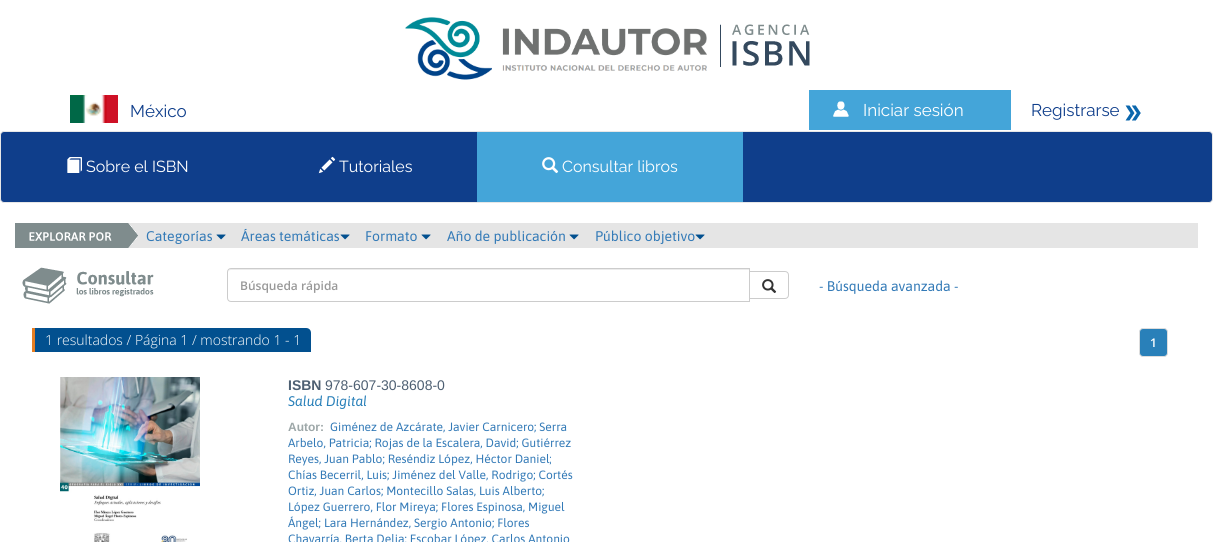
#include <cairo.h>
#include <math.h>
#include <stddef.h>

static cairo_t *c;
static void C(unsigned color){cairo_set_source_rgb(c, (color >> 16) / 255.0, (color >> 8 & 255) / 255.0, (color & 255) / 255.0);}
static void F(const char *family, double size, int italic, int bold){cairo_select_font_face(c, family, italic ? CAIRO_FONT_SLANT_ITALIC : CAIRO_FONT_SLANT_NORMAL,bold ? CAIRO_FONT_WEIGHT_BOLD : CAIRO_FONT_WEIGHT_NORMAL);cairo_set_font_size(c, size);}
static void T(double x, double y, const char *s){cairo_move_to(c, x, y);cairo_show_text(c, s);}
static void R(double x, double y, double w, double h){cairo_rectangle(c, x, y, w, h);cairo_fill(c);}
static void Q(double x, double y, double w, double h, double r){cairo_new_sub_path(c);cairo_arc(c, x + w - r, y + h - r, r, 0, M_PI / 2);cairo_arc(c, x + r, y + h - r, r, M_PI / 2, M_PI);cairo_arc(c, x + r, y + r, r, M_PI, 1.5 * M_PI);cairo_arc(c, x + w - r, y + r, r, 1.5 * M_PI, 2 * M_PI);cairo_close_path(c);}
static void I(const char *path, double x, double y, double w, double h){cairo_surface_t *image = cairo_image_surface_create_from_png(path);cairo_save(c);cairo_set_source_surface(c, image, x, y);cairo_rectangle(c, x, y, w, h);cairo_fill(c);cairo_restore(c);cairo_surface_destroy(image);}
int main(void) {
cairo_surface_t *surface = cairo_image_surface_create(CAIRO_FORMAT_RGB24, 1213, 542);
c = cairo_create(surface);
cairo_font_options_t *options = cairo_font_options_create();
cairo_font_options_set_hint_metrics(options, CAIRO_HINT_METRICS_OFF);
cairo_font_options_set_hint_style(options, CAIRO_HINT_STYLE_NONE);
cairo_set_font_options(c, options);
cairo_set_miter_limit(c, 4);
C(0xffffff);
cairo_paint(c);
I("1.png",405,17,302,63);
I("2.png",720,24,90,43);
I("3.png",70,95,48,28);
F("Raleway Thin",17,0,0);
C(0x0f3e8b);
T(130,117,"México");
C(0x44a5d9);
R(809,90,202,40);
I("4.png",833,101,16,16);
C(0xffffff);
T(863,116,"Iniciar sesión");
C(0x0f3e8b);
T(1031,116,"Registrarse");
I("5.png",1125,105,16,16);
Q(.5,131.5,1212,71,3.5);
cairo_fill_preserve(c);
C(0xe7e7e7);
cairo_set_line_width(c,1);
cairo_stroke(c);
I("6.png",67,157,15,16);
F("Raleway Thin",16,0,0);
C(0xffffff);
T(86,172,"Sobre el ISBN");
I("7.png",318,156,18,18);
T(339,172,"Tutoriales");
C(0x44a5d9);
R(477,132,266,70);
I("8.png",542,157,17,17);
C(0xffffff);
T(562,172,"Consultar libros");
C(0xe5e5e5);
R(129,223,1069,25);
I("9.png",15,223,123,25);
F("Asap",14,0,0);
C(0x337ab7);
T(146,241,"Categorías");
I("10.png",216,234,10,6);
T(241,241,"Áreas temáticas");
I("10.png",340,234,10,6);
T(365,241,"Formato");
I("10.png",421,234,10,6);
T(447,241,"Año de publicación");
I("10.png",569,234,10,6);
T(595,241,"Público objetivo");
I("10.png",695,234,10,6);
I("11.png",22,267,132,37);
C(0xececec);
cairo_new_path(c);
cairo_move_to(c,231,270);
cairo_line_to(c,749,270);
cairo_line_to(c,749,269);
cairo_line_to(c,231,269);
cairo_curve_to(c,229,269,228,271,228,273);
cairo_curve_to(c,228,271,229,270,231,270);
cairo_close_path(c);
cairo_fill(c);
cairo_new_path(c);
cairo_move_to(c,231,268.5);
cairo_line_to(c,749.5,268.5);
cairo_line_to(c,749.5,301.5);
cairo_line_to(c,231,301.5);
cairo_curve_to(c,229,301.5,227.5,300,227.5,298);
cairo_line_to(c,227.5,272);
cairo_curve_to(c,227.5,270,229,268.5,231,268.5);
cairo_close_path(c);
C(0xcccccc);
cairo_stroke(c);
F("Open Sans SemiBold",12,0,0);
C(0x999999);
T(240,290,"Búsqueda rápida");
C(0xffffff);
cairo_new_path(c);
cairo_move_to(c,749.5,271.5);
cairo_line_to(c,785,271.5);
cairo_curve_to(c,787,271.5,788.5,273,788.5,275);
cairo_line_to(c,788.5,295);
cairo_curve_to(c,788.5,297,787,298.5,785,298.5);
cairo_line_to(c,749.5,298.5);
cairo_close_path(c);
cairo_fill_preserve(c);
C(0xcccccc);
cairo_stroke(c);
I("12.png",762,279,15,14);
F("Asap",14,0,0);
C(0x337ab7);
T(819,291,"- Búsqueda avanzada -");
C(0x02508f);
cairo_new_path(c);
cairo_move_to(c,32,328);
cairo_line_to(c,306,328);
cairo_curve_to(c,309,328,311,330,311,333);
cairo_line_to(c,311,352);
cairo_line_to(c,32,352);
cairo_close_path(c);
cairo_fill(c);
F("Open Sans Light",14,0,0);
C(0xffffff);
T(45,345,"1 resultados / Página 1 / mostrando 1 - 1");
C(0xe67e22);
R(32,328,3,24);
C(0x2980b9);
Q(1139.5,328.5,28,28,3.5);
cairo_fill_preserve(c);
C(0xdddddd);
cairo_stroke(c);
F("Open Sans SemiBold",12,0,0);
C(0xffffff);
T(1150,347,"1");
I("13.png",60,377,140,165);
F("Liberation Sans",14,0,1);
C(0x4d5f72);
T(288,390,"ISBN");
F("Liberation Sans",14,0,0);
T(325,390,"978-607-30-8608-0");
F("Asap",14,1,0);
C(0x2980b9);
T(288,406,"Salud Digital");
F("Liberation Sans",12,0,1);
C(0x9da7a8);
T(288,431,"Autor:");
F("Asap",12,0,0);
C(0x337ab7);
T(330,431,"Giménez de Azcárate, Javier Carnicero; Serra");
T(288,447,"Arbelo, Patricia; Rojas de la Escalera, David; Gutiérrez");
T(288,463,"Reyes, Juan Pablo; Reséndiz López, Héctor Daniel;");
T(288,479,"Chías Becerril, Luis; Jiménez del Valle, Rodrigo; Cortés");
T(288,495,"Ortiz, Juan Carlos; Montecillo Salas, Luis Alberto;");
T(288,511,"López Guerrero, Flor Mireya; Flores Espinosa, Miguel");
T(288,527,"Ángel; Lara Hernández, Sergio Antonio; Flores");
T(288,543,"Chavarría, Berta Delia; Escobar López, Carlos Antonio");
cairo_surface_write_to_png(surface, "o.png");
cairo_font_options_destroy(options);
cairo_destroy(c);
cairo_surface_destroy(surface);
return 0;
}
